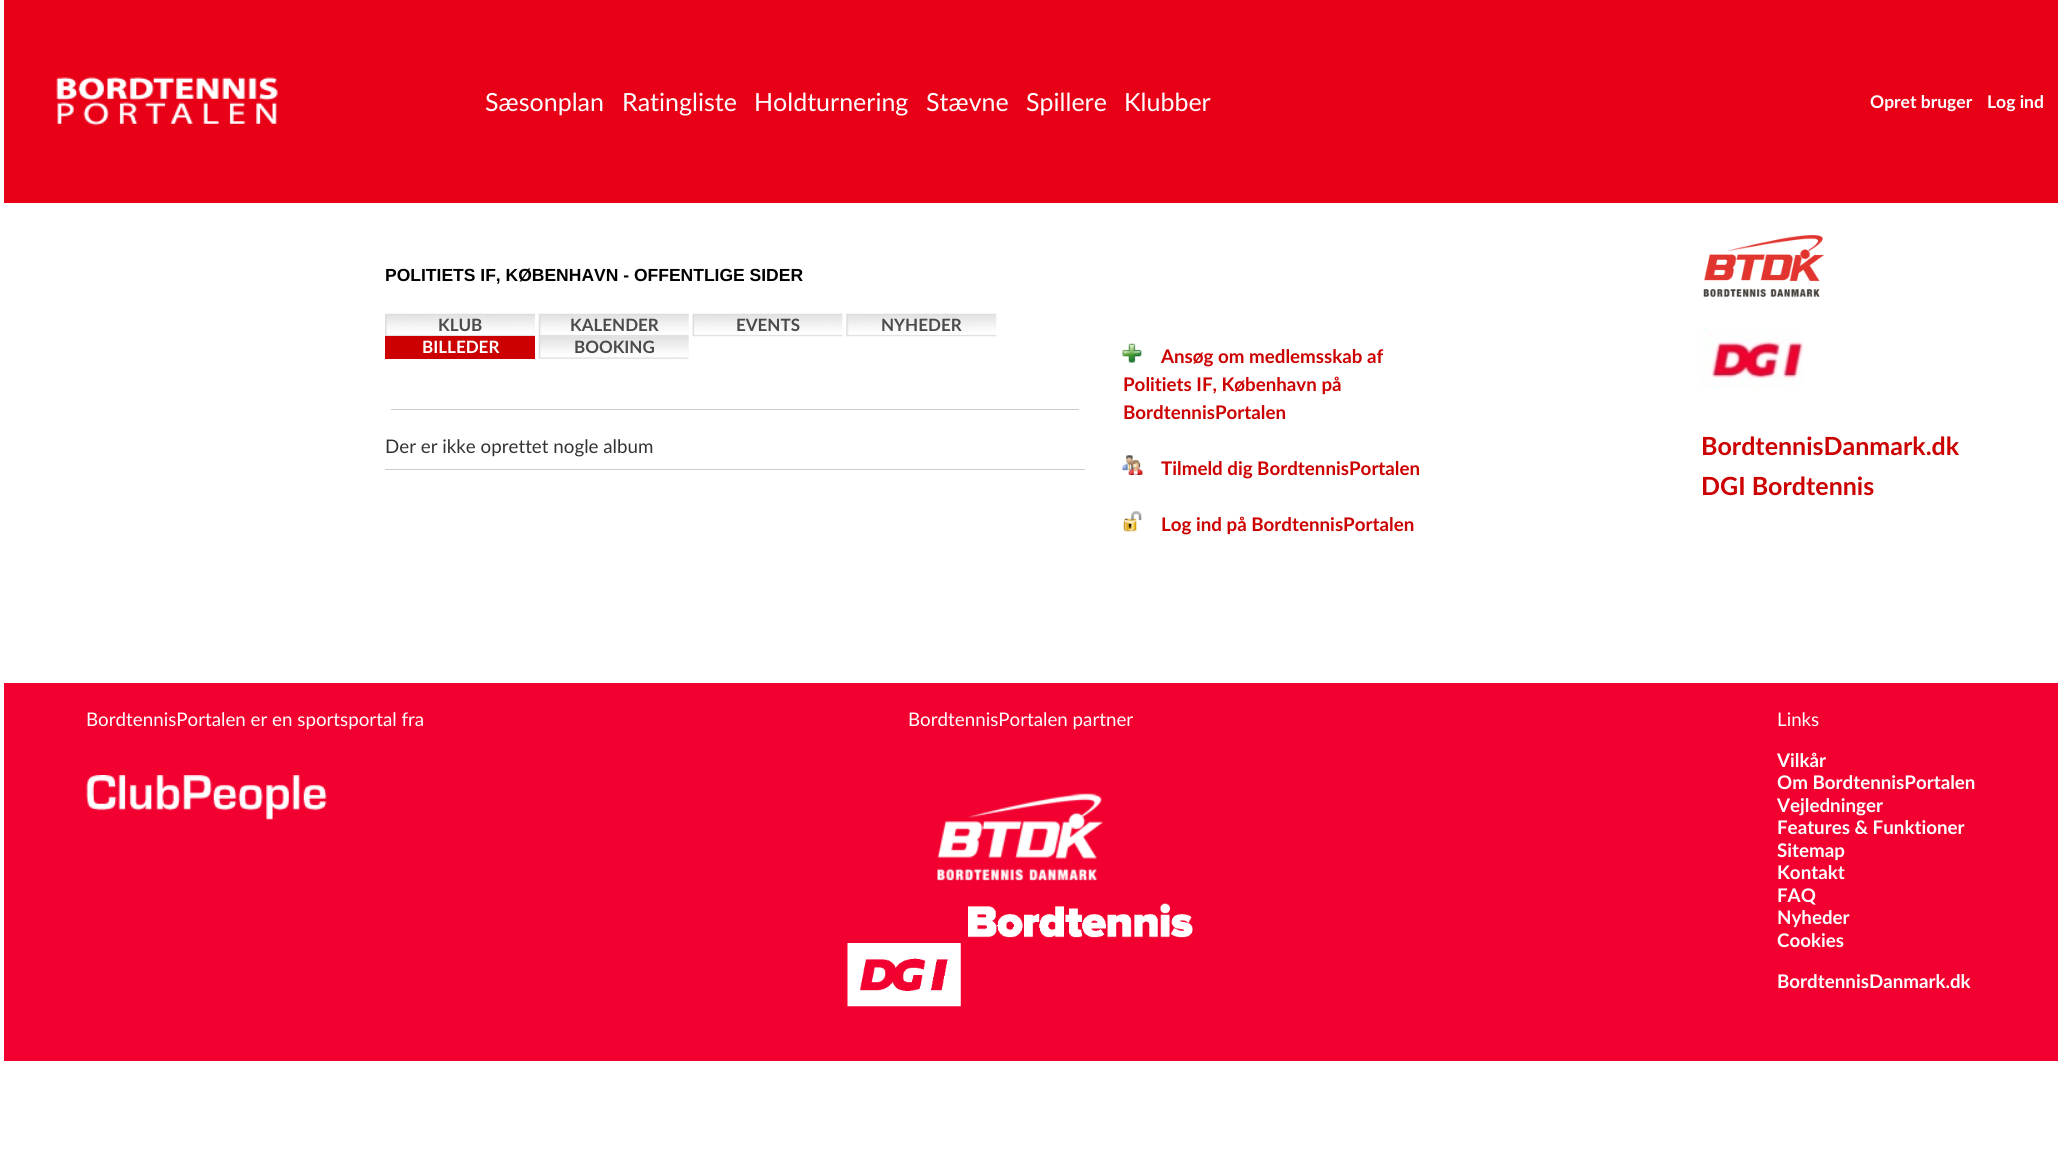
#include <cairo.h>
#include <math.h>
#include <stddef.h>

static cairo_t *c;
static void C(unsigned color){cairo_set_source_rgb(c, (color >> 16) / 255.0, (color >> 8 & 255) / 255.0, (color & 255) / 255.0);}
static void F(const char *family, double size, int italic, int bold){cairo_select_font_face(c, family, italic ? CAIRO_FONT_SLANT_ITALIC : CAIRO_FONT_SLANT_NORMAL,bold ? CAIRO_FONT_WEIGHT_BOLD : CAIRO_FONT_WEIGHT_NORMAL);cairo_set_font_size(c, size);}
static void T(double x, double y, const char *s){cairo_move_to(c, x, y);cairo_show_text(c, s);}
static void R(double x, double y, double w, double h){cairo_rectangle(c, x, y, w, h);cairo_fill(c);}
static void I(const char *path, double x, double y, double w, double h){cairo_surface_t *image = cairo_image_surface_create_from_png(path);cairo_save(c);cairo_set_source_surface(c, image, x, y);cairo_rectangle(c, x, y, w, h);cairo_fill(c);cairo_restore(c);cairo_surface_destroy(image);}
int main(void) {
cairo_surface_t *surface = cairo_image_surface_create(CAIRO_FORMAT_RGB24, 2061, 1172);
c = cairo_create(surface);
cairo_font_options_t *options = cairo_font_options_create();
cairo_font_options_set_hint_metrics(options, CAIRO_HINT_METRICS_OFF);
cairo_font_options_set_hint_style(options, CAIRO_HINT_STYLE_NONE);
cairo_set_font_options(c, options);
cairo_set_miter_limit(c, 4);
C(0xffffff);
cairo_paint(c);
C(0xe80017);
R(4,0,2054,203);
I("1.png",56,77,222,49);
F("Lato",25,0,0);
C(0xffffff);
T(485,111,"Sæsonplan");
T(622,111,"Ratingliste");
T(754,111,"Holdturnering");
T(926,111,"Stævne");
T(1026,111,"Spillere");
T(1124,111,"Klubber");
F("Lato",17.5,0,1);
T(1870,108,"Opret bruger");
T(1987,108,"Log ind");
F("Liberation Sans",17.5,0,1);
C(0x000000);
T(385,281,"POLITIETS IF, KØBENHAVN - OFFENTLIGE SIDER");
I("2.png",385,313,150,23);
F("Lato",17,0,1);
C(0x4b4b4b);
T(438,331,"KLUB");
I("3.png",538,313,151,24);
T(570,331,"KALENDER");
I("4.png",692,313,151,24);
T(736,331,"EVENTS");
I("5.png",846,313,151,24);
T(881,331,"NYHEDER");
C(0xcc0000);
R(385,336,150,23);
C(0xffffff);
T(422,353,"BILLEDER");
I("6.png",538,336,151,23);
C(0x4b4b4b);
T(574,353,"BOOKING");
C(0xcccccc);
R(391,409,688,1);
F("Lato",18.75,0,0);
C(0x333333);
T(385,453,"Der er ikke oprettet nogle album");
C(0xcccccc);
R(385,469,700,1);
I("7.png",1122,343,20,20);
F("Lato",18.75,0,1);
C(0xcc0000);
T(1161,363,"Ansøg om medlemsskab af");
T(1123,391,"Politiets IF, København på");
T(1123,419,"BordtennisPortalen");
I("8.png",1122,455,21,20);
T(1161,475,"Tilmeld dig BordtennisPortalen");
I("9.png",1123,511,19,21);
T(1161,531,"Log ind på BordtennisPortalen");
I("10.png",1703,234,121,63);
I("11.png",1702,329,102,60);
F("Lato",25,0,1);
T(1701,455,"BordtennisDanmark.dk");
T(1701,495,"DGI Bordtennis");
C(0xf2002f);
R(4,683,2054,378);
F("Lato",18.75,0,0);
C(0xffffff);
T(86,726,"BordtennisPortalen er en sportsportal fra");
I("12.png",86,775,241,45);
T(908,726,"BordtennisPortalen partner");
I("13.png",937,793,166,88);
I("14.png",847,903,346,104);
T(1777,726,"Links");
F("Lato",18.75,0,1);
T(1777,767,"Vilkår");
T(1777,789,"Om BordtennisPortalen");
T(1777,812,"Vejledninger");
T(1777,834,"Features & Funktioner");
T(1777,857,"Sitemap");
T(1777,879,"Kontakt");
T(1777,902,"FAQ");
T(1777,924,"Nyheder");
T(1777,947,"Cookies");
T(1777,988,"BordtennisDanmark.dk");
cairo_surface_write_to_png(surface, "o.png");
cairo_font_options_destroy(options);
cairo_destroy(c);
cairo_surface_destroy(surface);
return 0;
}
